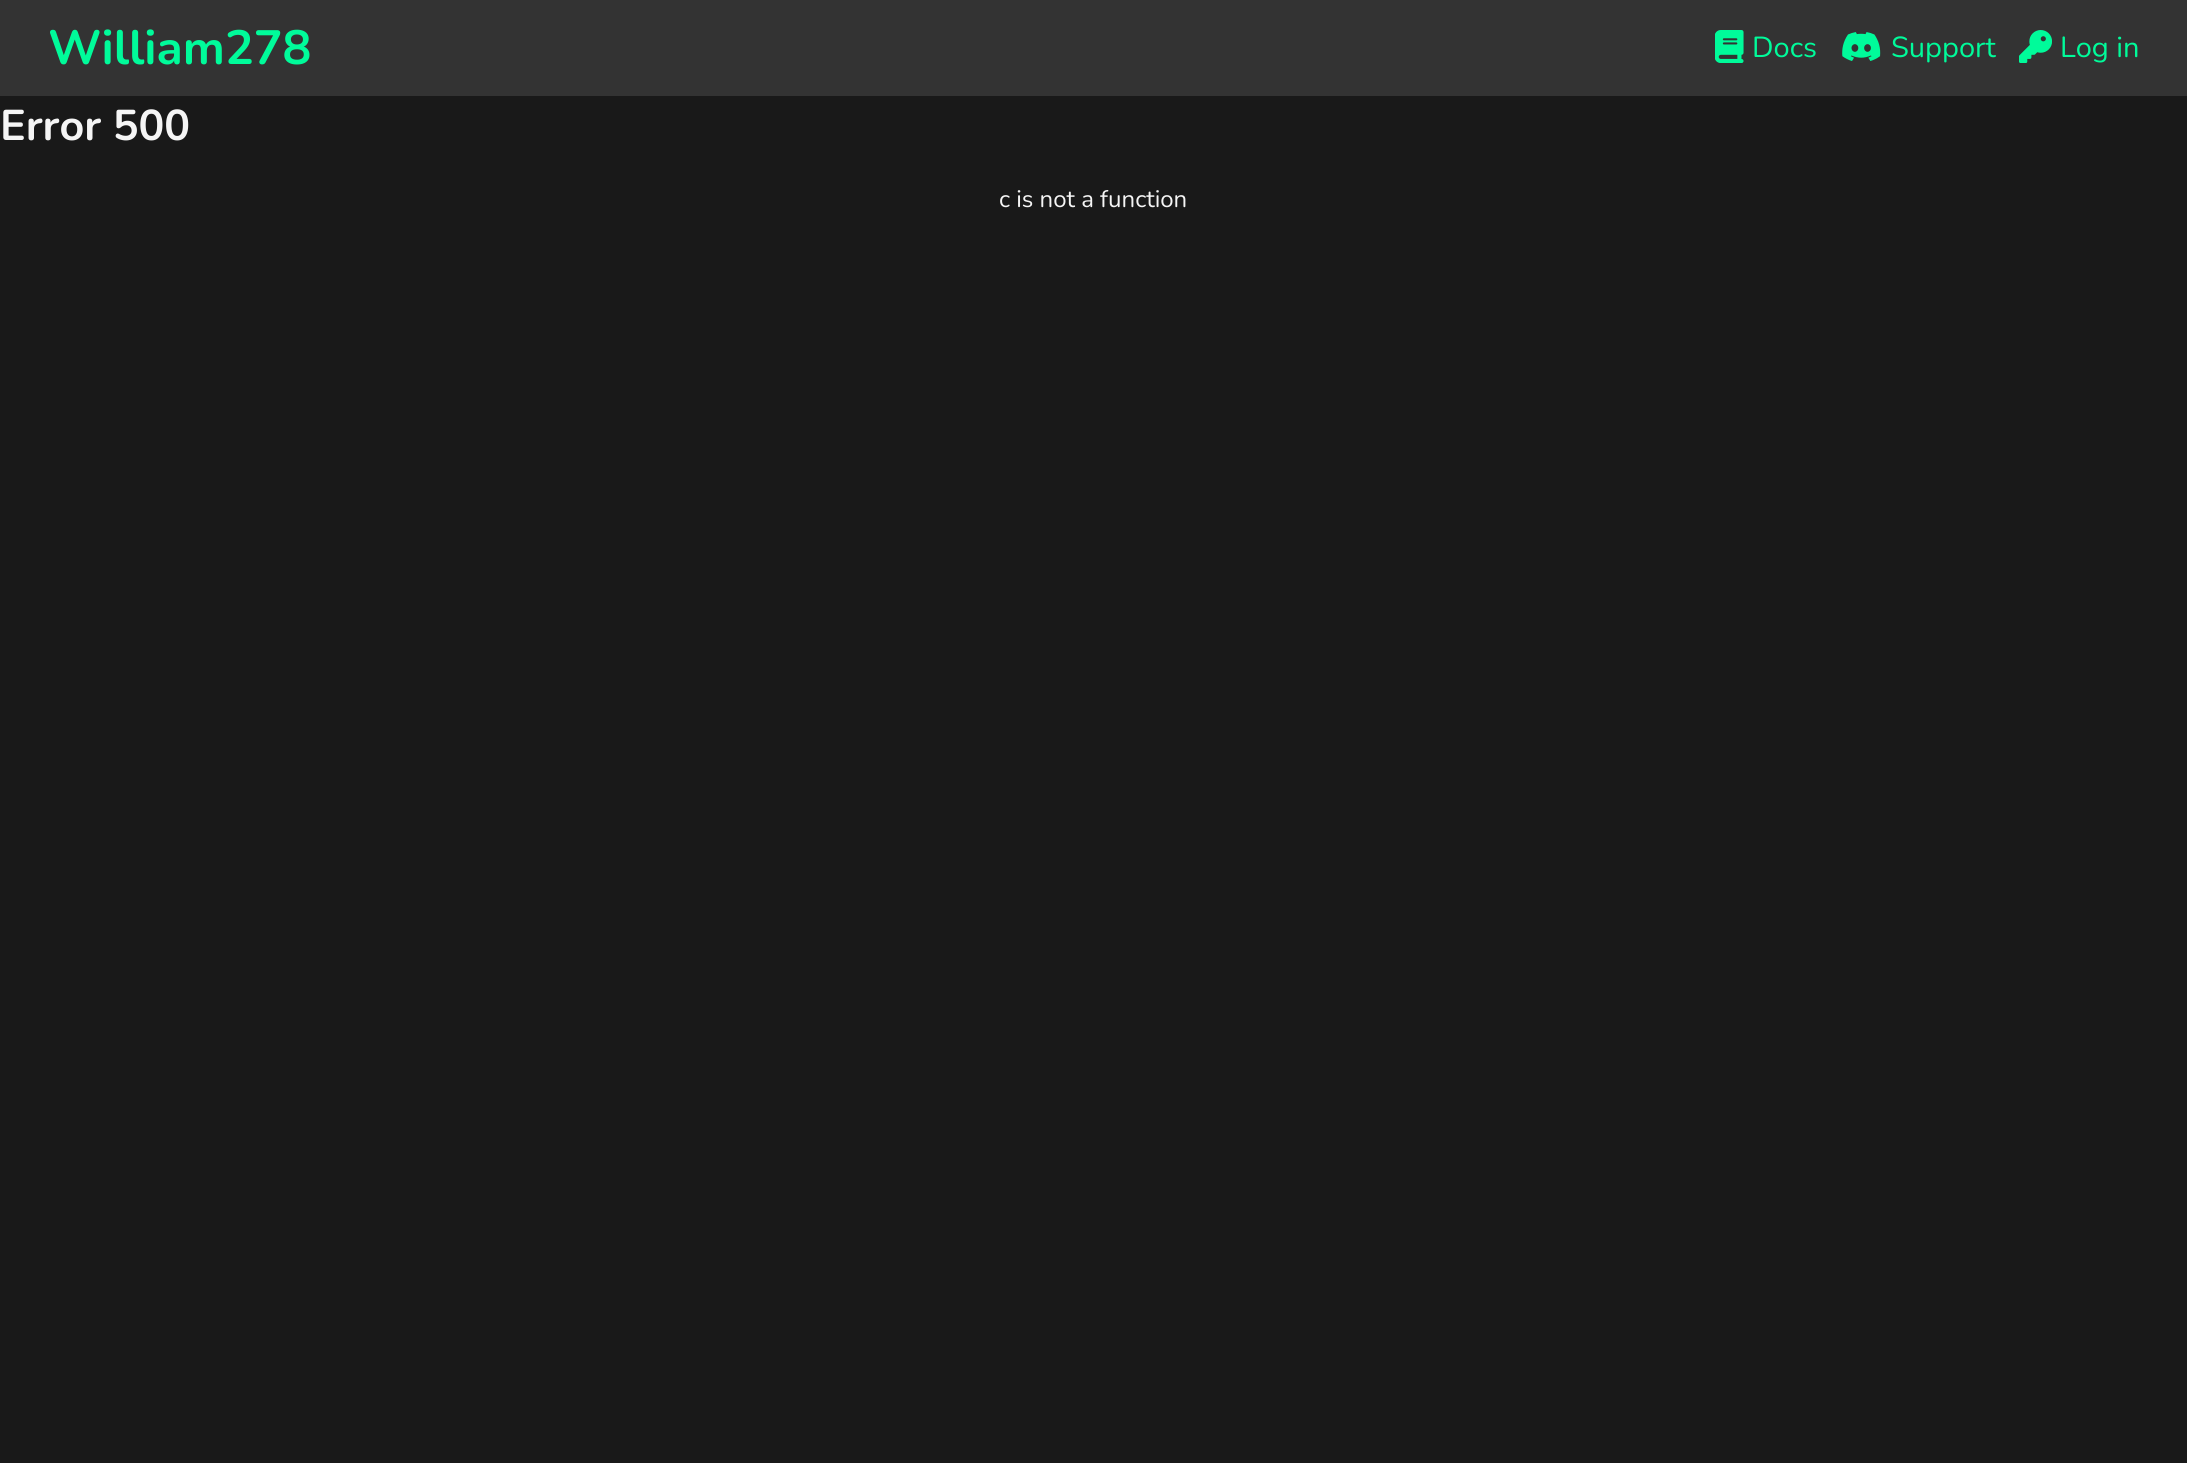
#include <cairo.h>
#include <math.h>
#include <stddef.h>

static cairo_t *c;
static void C(unsigned color){cairo_set_source_rgb(c, (color >> 16) / 255.0, (color >> 8 & 255) / 255.0, (color & 255) / 255.0);}
static void F(const char *family, double size, int italic, int bold){cairo_select_font_face(c, family, italic ? CAIRO_FONT_SLANT_ITALIC : CAIRO_FONT_SLANT_NORMAL,bold ? CAIRO_FONT_WEIGHT_BOLD : CAIRO_FONT_WEIGHT_NORMAL);cairo_set_font_size(c, size);}
static void T(double x, double y, const char *s){cairo_move_to(c, x, y);cairo_show_text(c, s);}
static void R(double x, double y, double w, double h){cairo_rectangle(c, x, y, w, h);cairo_fill(c);}
static void I(const char *path, double x, double y, double w, double h){cairo_surface_t *image = cairo_image_surface_create_from_png(path);cairo_save(c);cairo_set_source_surface(c, image, x, y);cairo_rectangle(c, x, y, w, h);cairo_fill(c);cairo_restore(c);cairo_surface_destroy(image);}
int main(void) {
cairo_surface_t *surface = cairo_image_surface_create(CAIRO_FORMAT_RGB24, 2187, 1463);
c = cairo_create(surface);
cairo_font_options_t *options = cairo_font_options_create();
cairo_font_options_set_hint_metrics(options, CAIRO_HINT_METRICS_OFF);
cairo_font_options_set_hint_style(options, CAIRO_HINT_STYLE_NONE);
cairo_set_font_options(c, options);
cairo_set_miter_limit(c, 4);
C(0x333333);
cairo_paint(c);
F("Nunito",48,0,1);
C(0x00fb9a);
T(48,64,"William278");
I("1.png",1715,30,29,33);
F("Nunito",29,0,0);
T(1752,57,"Docs");
I("2.png",1842,32,39,29);
T(1891,57,"Support");
I("3.png",2019,30,33,33);
T(2060,57,"Log in");
C(0x191919);
R(0,96,2187,1367);
F("Nunito",43,0,1);
C(0xf5f5f5);
T(0,140,"Error 500");
F("Nunito",24,0,0);
T(999,207,"c is not a function");
cairo_surface_write_to_png(surface, "o.png");
cairo_font_options_destroy(options);
cairo_destroy(c);
cairo_surface_destroy(surface);
return 0;
}
